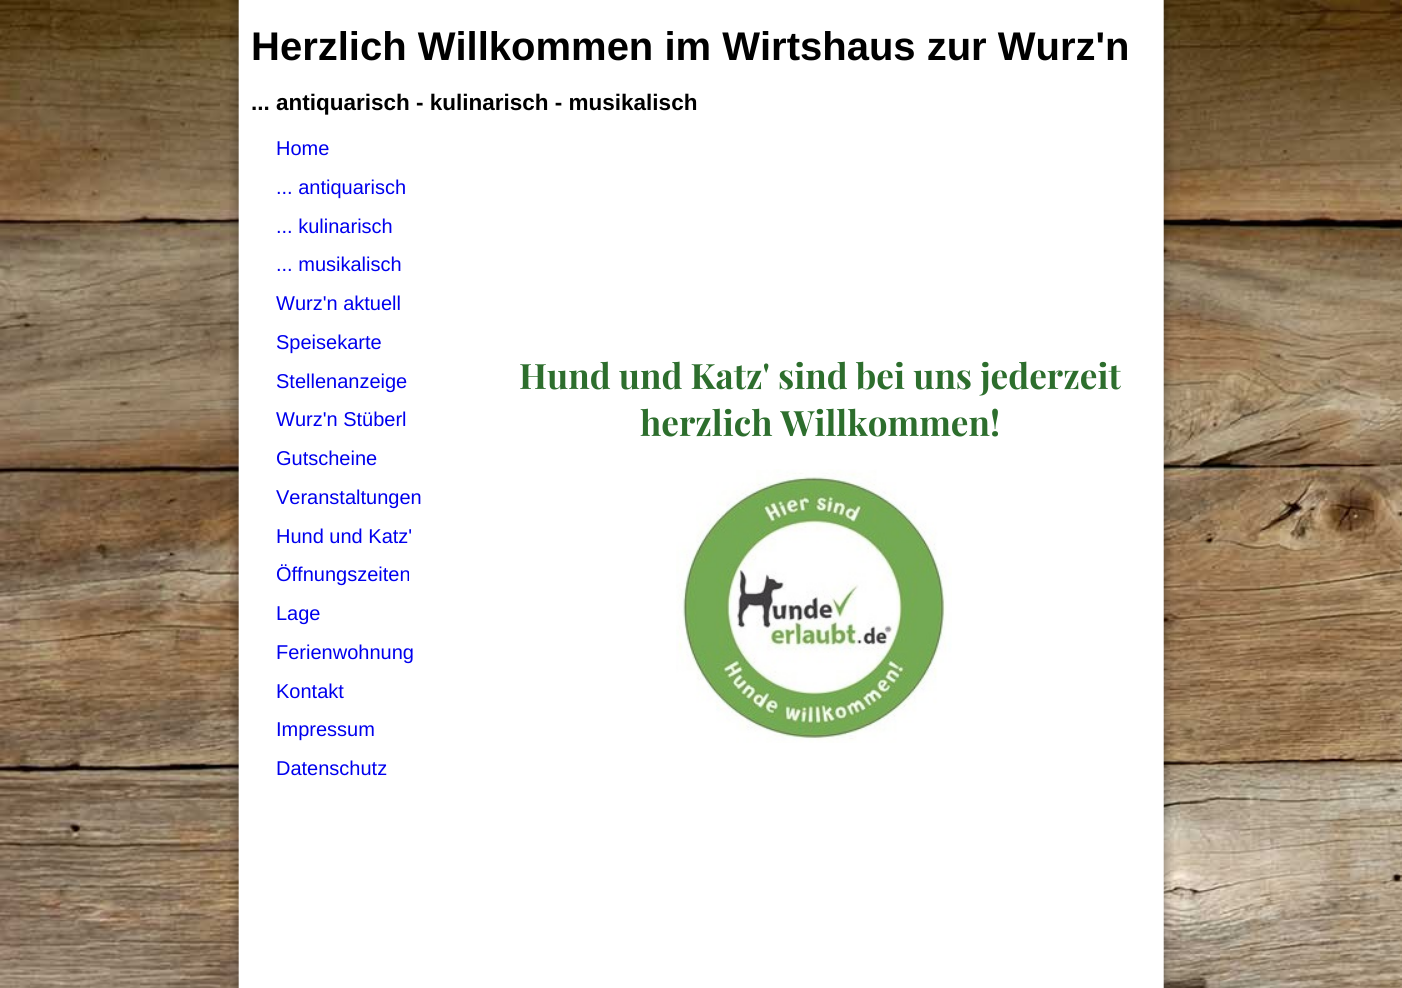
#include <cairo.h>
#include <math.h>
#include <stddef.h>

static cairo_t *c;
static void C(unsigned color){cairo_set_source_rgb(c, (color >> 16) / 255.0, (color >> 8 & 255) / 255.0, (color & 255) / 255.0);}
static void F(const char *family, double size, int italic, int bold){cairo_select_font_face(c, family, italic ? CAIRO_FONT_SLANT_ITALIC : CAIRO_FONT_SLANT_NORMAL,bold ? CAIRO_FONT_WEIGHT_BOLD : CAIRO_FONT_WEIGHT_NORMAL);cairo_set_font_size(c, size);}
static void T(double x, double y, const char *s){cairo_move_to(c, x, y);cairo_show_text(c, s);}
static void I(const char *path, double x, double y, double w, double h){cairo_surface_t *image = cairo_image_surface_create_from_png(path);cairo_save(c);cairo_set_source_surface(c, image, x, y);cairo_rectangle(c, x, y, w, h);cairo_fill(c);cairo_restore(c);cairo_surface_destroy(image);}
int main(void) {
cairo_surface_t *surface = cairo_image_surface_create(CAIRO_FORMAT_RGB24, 1402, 988);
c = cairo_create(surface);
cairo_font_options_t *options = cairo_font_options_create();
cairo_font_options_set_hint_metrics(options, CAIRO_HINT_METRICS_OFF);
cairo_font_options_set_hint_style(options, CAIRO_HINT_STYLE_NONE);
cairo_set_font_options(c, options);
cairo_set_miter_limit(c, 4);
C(0xffffff);
cairo_paint(c);
I("1.png",0,0,1402,988);
I("2.png",229,0,945,988);
F("Liberation Sans",40,0,1);
C(0x000000);
T(251,60,"Herzlich Willkommen im Wirtshaus zur Wurz'n");
F("Liberation Sans",22.5,0,1);
T(251,110,"... antiquarisch - kulinarisch - musikalisch");
F("Liberation Sans",20,0,0);
C(0x0000ee);
T(276,155,"Home");
T(276,194,"... antiquarisch");
T(276,233,"... kulinarisch");
T(276,271,"... musikalisch");
T(276,310,"Wurz'n aktuell");
T(276,349,"Speisekarte");
T(276,388,"Stellenanzeige");
T(276,426,"Wurz'n Stüberl");
T(276,465,"Gutscheine");
T(276,504,"Veranstaltungen");
T(276,543,"Hund und Katz'");
T(276,581,"Öffnungszeiten");
T(276,620,"Lage");
T(276,659,"Ferienwohnung");
T(276,698,"Kontakt");
T(276,736,"Impressum");
T(276,775,"Datenschutz");
F("Playfair Display",35,0,1);
C(0x2d6e2d);
T(519,389,"Hund und Katz' sind bei uns jederzeit");
T(640,436,"herzlich Willkommen!");
I("3.png",676,469,276,274);
cairo_surface_write_to_png(surface, "o.png");
cairo_font_options_destroy(options);
cairo_destroy(c);
cairo_surface_destroy(surface);
return 0;
}
